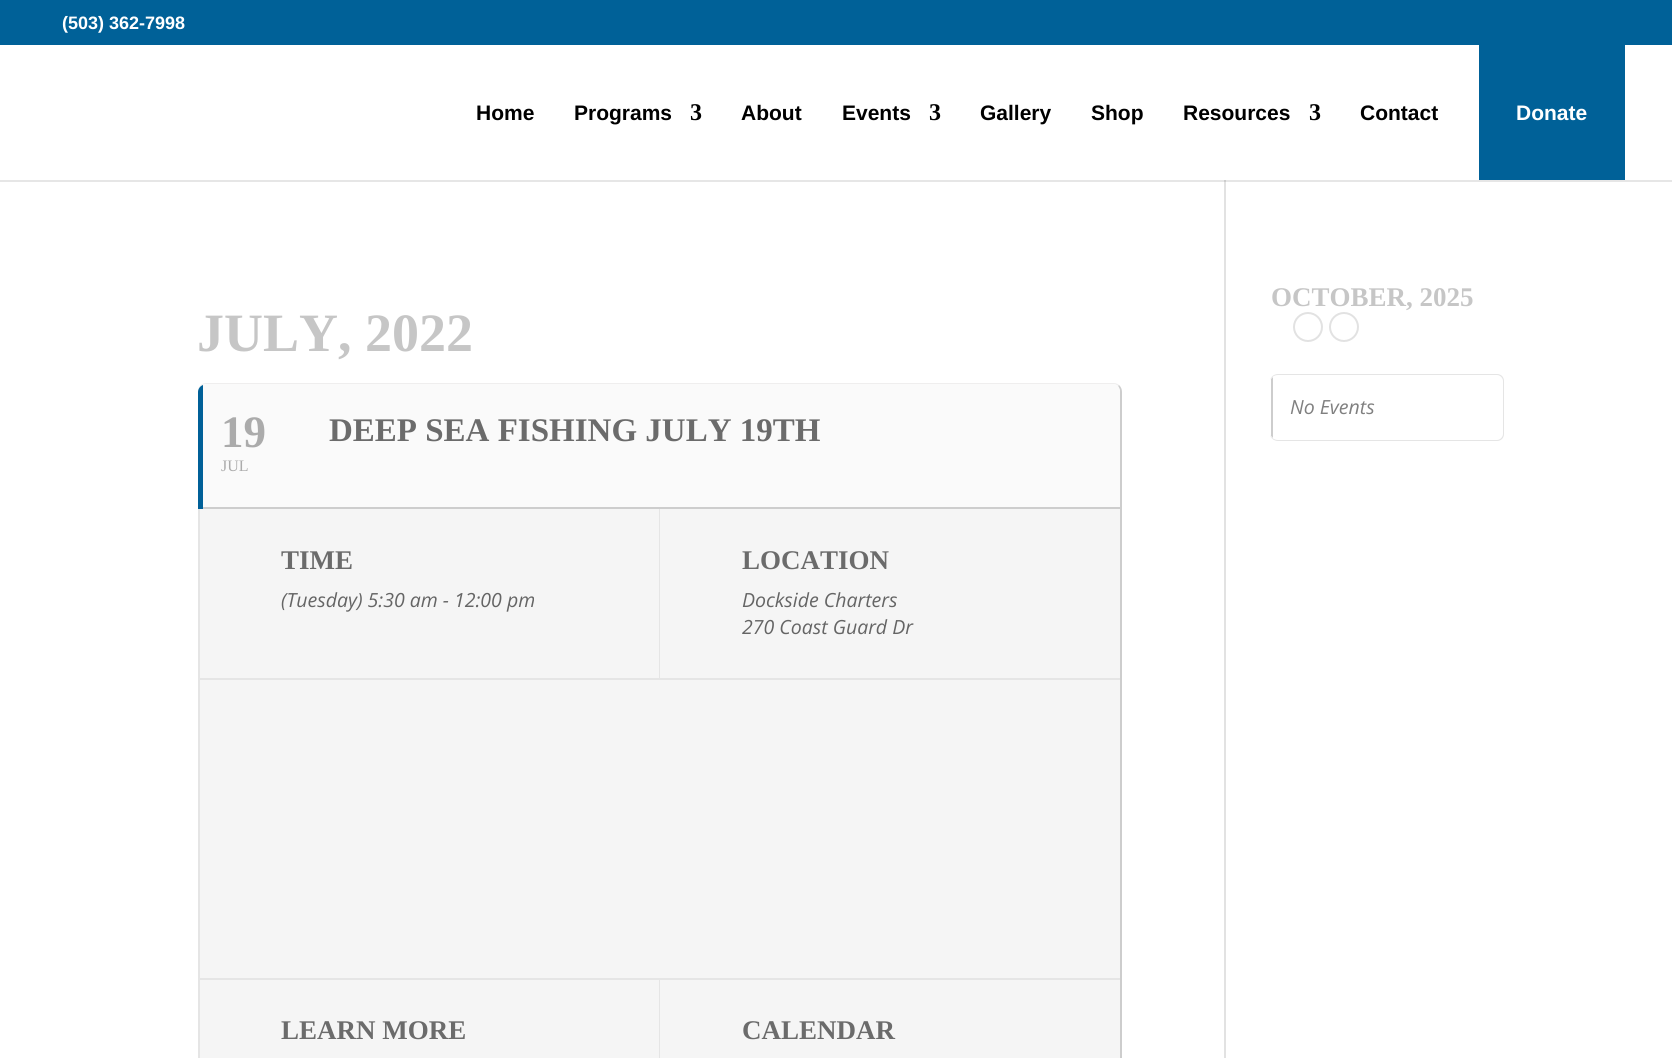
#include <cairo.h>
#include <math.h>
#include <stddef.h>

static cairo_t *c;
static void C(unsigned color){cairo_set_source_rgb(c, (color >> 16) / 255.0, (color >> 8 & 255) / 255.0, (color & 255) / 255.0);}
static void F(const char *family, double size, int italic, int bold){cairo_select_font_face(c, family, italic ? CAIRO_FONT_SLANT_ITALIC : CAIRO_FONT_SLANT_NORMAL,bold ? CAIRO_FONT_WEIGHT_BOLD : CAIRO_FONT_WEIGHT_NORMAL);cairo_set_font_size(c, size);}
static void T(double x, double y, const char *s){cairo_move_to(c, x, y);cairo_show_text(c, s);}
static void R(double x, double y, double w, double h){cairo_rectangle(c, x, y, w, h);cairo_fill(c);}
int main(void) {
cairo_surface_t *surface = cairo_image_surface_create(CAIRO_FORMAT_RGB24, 1672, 1058);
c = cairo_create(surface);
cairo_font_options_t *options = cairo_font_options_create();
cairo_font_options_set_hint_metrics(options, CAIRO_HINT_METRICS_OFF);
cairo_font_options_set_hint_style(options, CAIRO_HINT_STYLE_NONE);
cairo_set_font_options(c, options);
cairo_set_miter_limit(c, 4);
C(0xffffff);
cairo_paint(c);
C(0x006198);
R(0,0,1672,45);
F("Liberation Sans",18,0,1);
C(0xffffff);
T(62,29,"(503) 362-7998");
C(0xe2e2e2);
R(1224,180,2,878);
cairo_set_source_rgba(c,0,0,0,0.1);
cairo_new_path(c);
cairo_move_to(c,0,180);
cairo_line_to(c,0,182);
cairo_line_to(c,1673,182);
cairo_line_to(c,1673,47);
cairo_line_to(c,1672,47);
cairo_line_to(c,1672,180);
cairo_close_path(c);
cairo_fill(c);
F("Liberation Sans",21,0,1);
C(0x000000);
T(476,120,"Home");
T(574,120,"Programs");
F("Liberation Serif",24,0,1);
T(690,120,"3");
F("Liberation Sans",21,0,1);
T(741,120,"About");
T(842,120,"Events");
F("Liberation Serif",24,0,1);
T(929,120,"3");
F("Liberation Sans",21,0,1);
T(980,120,"Gallery");
T(1091,120,"Shop");
T(1183,120,"Resources");
F("Liberation Serif",24,0,1);
T(1309,120,"3");
F("Liberation Sans",21,0,1);
T(1360,120,"Contact");
C(0x006198);
R(1479,45,146,135);
C(0xffffff);
T(1516,120,"Donate");
F("Liberation Serif",54,0,1);
C(0xc6c6c6);
T(197,351,"JULY, 2022");
C(0xefeeee);
cairo_new_path(c);
cairo_move_to(c,207,384);
cairo_curve_to(c,202,384,198,387,198,392);
cairo_curve_to(c,198,387,201,383,206,383);
cairo_line_to(c,1114,383);
cairo_curve_to(c,1116,383,1118,384,1119,385);
cairo_line_to(c,1118,386);
cairo_curve_to(c,1117,385,1115,384,1113,384);
cairo_close_path(c);
cairo_fill(c);
C(0xcdcdcd);
cairo_new_path(c);
cairo_move_to(c,1113,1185);
cairo_curve_to(c,1117,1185,1120,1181,1120,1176);
cairo_line_to(c,1120,392);
cairo_curve_to(c,1120,390,1119,388,1118,386);
cairo_line_to(c,1119,385);
cairo_curve_to(c,1121,387,1122,389,1122,392);
cairo_line_to(c,1122,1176);
cairo_curve_to(c,1122,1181,1118,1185,1113,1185);
cairo_close_path(c);
cairo_fill(c);
C(0xfafafa);
cairo_new_path(c);
cairo_move_to(c,207,384);
cairo_curve_to(c,202,384,198,387,198,392);
cairo_line_to(c,198,509);
cairo_line_to(c,1120,509);
cairo_line_to(c,1120,392);
cairo_curve_to(c,1120,387,1117,384,1113,384);
cairo_close_path(c);
cairo_fill(c);
C(0x006098);
cairo_new_path(c);
cairo_move_to(c,203,385);
cairo_curve_to(c,200,386,198,389,198,392);
cairo_line_to(c,198,509);
cairo_line_to(c,203,509);
cairo_close_path(c);
cairo_fill(c);
F("Liberation Serif",45,0,1);
C(0xababab);
T(221,447,"19");
F("Liberation Serif",16,0,0);
T(221,471,"JUL");
F("Liberation Serif",33,0,1);
C(0x6b6b6b);
T(329,441,"DEEP SEA FISHING JULY 19TH");
C(0xcdcdcd);
R(203,507,917,2);
C(0xf5f5f5);
cairo_new_path(c);
cairo_move_to(c,198,509);
cairo_line_to(c,198,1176);
cairo_curve_to(c,198,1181,202,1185,207,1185);
cairo_line_to(c,1113,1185);
cairo_curve_to(c,1117,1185,1120,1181,1120,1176);
cairo_line_to(c,1120,509);
cairo_close_path(c);
cairo_fill(c);
C(0xe5e5e5);
cairo_new_path(c);
cairo_move_to(c,198,509);
cairo_line_to(c,198,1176);
cairo_curve_to(c,198,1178,199,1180,200,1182);
cairo_line_to(c,200,509);
cairo_close_path(c);
cairo_fill(c);
R(200,678,920,2);
R(659,509,1,169);
F("Liberation Serif",27,0,1);
C(0x6b6b6b);
T(281,569,"TIME");
F("Open Sans",19.5,1,0);
C(0x656565);
T(281,607,"(Tuesday) 5:30 am - 12:00 pm");
F("Liberation Serif",27,0,1);
C(0x6b6b6b);
T(742,569,"LOCATION");
F("Open Sans",19.5,1,0);
C(0x656565);
T(742,607,"Dockside Charters");
T(742,634,"270 Coast Guard Dr");
C(0xe5e5e5);
R(200,978,920,2);
R(659,980,1,78);
F("Liberation Serif",27,0,1);
C(0x6b6b6b);
T(281,1039,"LEARN MORE");
T(742,1039,"CALENDAR");
C(0xc6c6c6);
T(1271,306,"OCTOBER, 2025");
cairo_new_path(c);
cairo_arc(c,1308,327,14,0,2 * M_PI);
C(0xe2e2e2);
cairo_stroke(c);
cairo_arc(c,1344,327,14,0,2 * M_PI);
cairo_stroke(c);
C(0xe5e5e5);
cairo_set_fill_rule(c,CAIRO_FILL_RULE_EVEN_ODD);
cairo_new_path(c);
cairo_move_to(c,1278,374);
cairo_line_to(c,1497,374);
cairo_curve_to(c,1501,374,1504,377,1504,381);
cairo_line_to(c,1504,434);
cairo_curve_to(c,1504,438,1501,441,1497,441);
cairo_line_to(c,1278,441);
cairo_curve_to(c,1274,441,1270,438,1270,434);
cairo_line_to(c,1270,381);
cairo_curve_to(c,1270,377,1274,374,1278,374);
cairo_close_path(c);
cairo_move_to(c,1278,375);
cairo_line_to(c,1497,375);
cairo_curve_to(c,1500,375,1503,378,1503,381);
cairo_line_to(c,1503,434);
cairo_curve_to(c,1503,437,1500,440,1497,440);
cairo_line_to(c,1278,440);
cairo_curve_to(c,1274,440,1270,437,1270,434);
cairo_line_to(c,1270,381);
cairo_curve_to(c,1270,378,1274,375,1278,375);
cairo_close_path(c);
cairo_fill(c);
C(0xcdcdcd);
cairo_set_fill_rule(c,CAIRO_FILL_RULE_WINDING);
cairo_new_path(c);
cairo_move_to(c,1271,379);
cairo_line_to(c,1273,377);
cairo_line_to(c,1273,438);
cairo_line_to(c,1271,436);
cairo_close_path(c);
cairo_fill(c);
F("Open Sans",19.5,1,0);
C(0x808080);
T(1290,414,"No Events");
cairo_surface_write_to_png(surface, "o.png");
cairo_font_options_destroy(options);
cairo_destroy(c);
cairo_surface_destroy(surface);
return 0;
}
